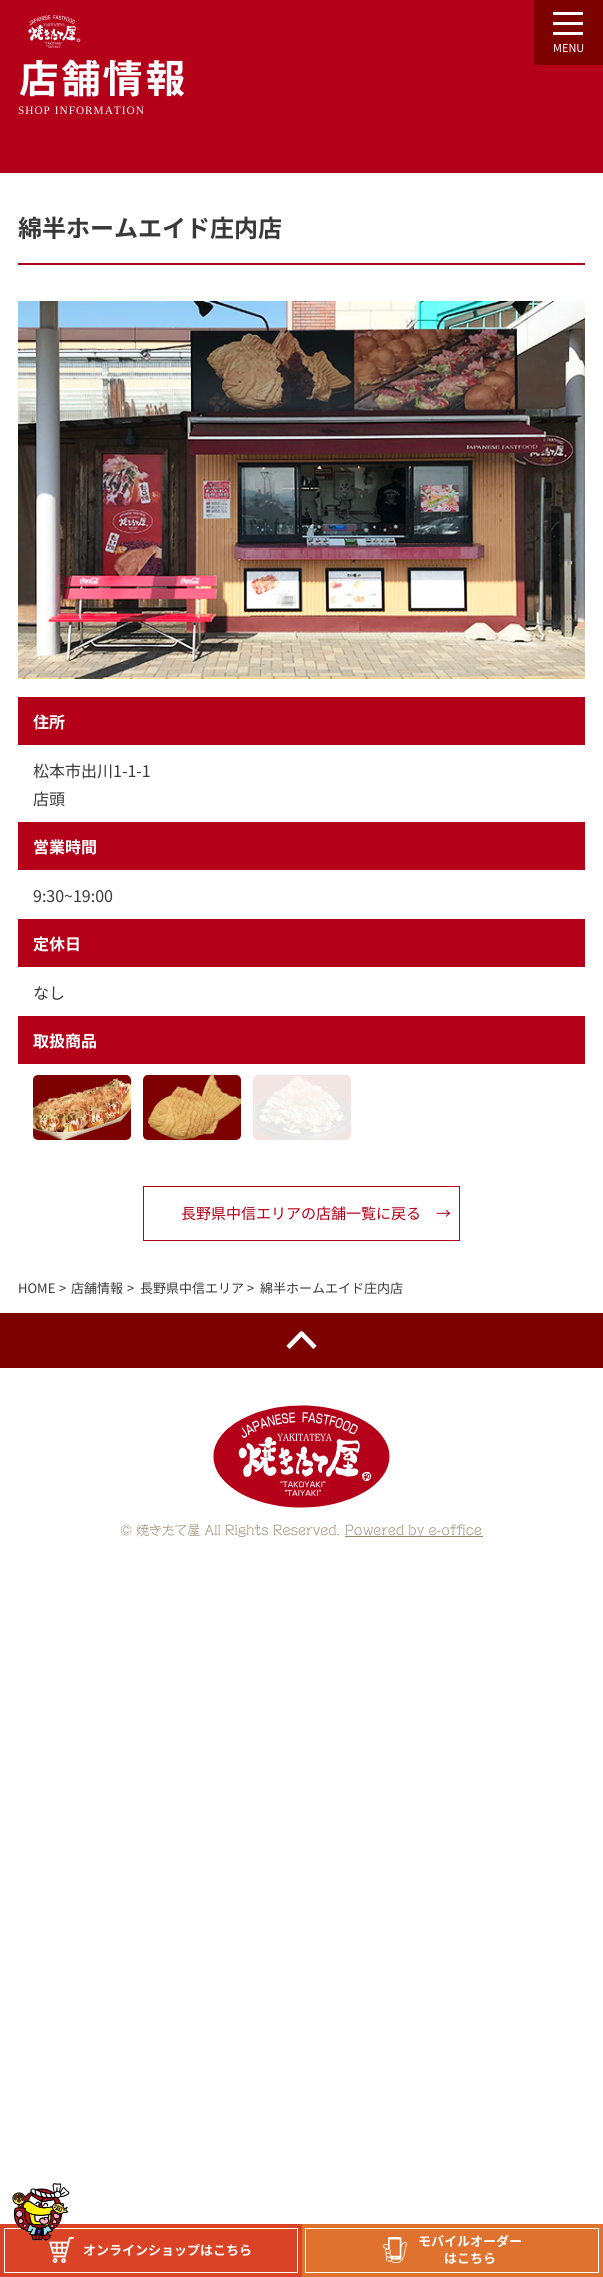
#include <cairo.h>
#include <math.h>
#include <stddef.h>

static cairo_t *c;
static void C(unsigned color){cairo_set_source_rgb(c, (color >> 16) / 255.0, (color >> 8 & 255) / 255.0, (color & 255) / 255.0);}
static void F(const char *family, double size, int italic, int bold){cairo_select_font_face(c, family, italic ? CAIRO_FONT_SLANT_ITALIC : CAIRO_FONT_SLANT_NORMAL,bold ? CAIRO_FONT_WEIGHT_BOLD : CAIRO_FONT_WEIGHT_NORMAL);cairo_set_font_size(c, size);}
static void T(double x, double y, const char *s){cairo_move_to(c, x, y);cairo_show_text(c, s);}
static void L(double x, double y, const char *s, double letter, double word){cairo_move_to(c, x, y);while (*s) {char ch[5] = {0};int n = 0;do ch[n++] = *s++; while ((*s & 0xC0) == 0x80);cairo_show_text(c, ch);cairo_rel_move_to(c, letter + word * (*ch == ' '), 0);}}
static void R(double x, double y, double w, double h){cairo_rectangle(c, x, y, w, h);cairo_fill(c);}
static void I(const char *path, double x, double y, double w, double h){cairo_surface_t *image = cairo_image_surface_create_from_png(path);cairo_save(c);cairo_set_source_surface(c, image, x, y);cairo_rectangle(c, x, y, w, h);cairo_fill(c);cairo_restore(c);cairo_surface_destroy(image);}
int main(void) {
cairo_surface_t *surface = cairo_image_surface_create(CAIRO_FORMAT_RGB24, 603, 2277);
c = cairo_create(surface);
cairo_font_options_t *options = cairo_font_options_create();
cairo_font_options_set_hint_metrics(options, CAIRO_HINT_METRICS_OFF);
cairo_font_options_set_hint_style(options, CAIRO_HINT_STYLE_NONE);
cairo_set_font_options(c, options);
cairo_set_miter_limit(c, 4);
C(0xffffff);
cairo_paint(c);
C(0xb40019);
R(0,0,603,173);
I("1.png",28,15,53,33);
C(0x7c0100);
R(534,0,69,65);
C(0xffffff);
R(553,12,30,3);
R(553,22,30,3);
R(553,32,30,3);
F("Noto Sans JP",11,0,0);
T(553,52,"MENU");
F("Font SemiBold",42,0,0);
T(18,94,"店舗情報");
F("Liberation Serif",11.3,0,0);
L(18,114,"SHOP INFORMATION",1,0);
C(0xb40019);
R(18,263,567,2);
F("Noto Sans JP",24,0,1);
C(0x393939);
T(18,237,"綿半ホームエイド庄内店");
I("2.png",18,301,567,378);
C(0xb40019);
R(18,697,567,48);
F("Noto Sans JP",16,0,1);
C(0xffffff);
T(33,728,"住所");
F("Noto Sans JP",16,0,0);
C(0x393939);
T(33,777,"松本市出川1-1-1");
T(33,805,"店頭");
C(0xb40019);
R(18,822,567,48);
F("Noto Sans JP",16,0,1);
C(0xffffff);
T(33,853,"営業時間");
F("Noto Sans JP",16,0,0);
C(0x393939);
T(33,902,"9:30~19:00");
C(0xb40019);
R(18,919,567,48);
F("Noto Sans JP",16,0,1);
C(0xffffff);
T(33,950,"定休日");
F("Noto Sans JP",16,0,0);
C(0x393939);
T(33,999,"なし");
C(0xb40019);
R(18,1016,567,48);
F("Noto Sans JP",16,0,1);
C(0xffffff);
T(33,1047,"取扱商品");
I("3.png",33,1075,98,65);
I("4.png",143,1075,98,65);
I("5.png",253,1075,98,65);
cairo_rectangle(c,143.5,1186.5,316,54);
C(0xb40019);
cairo_set_line_width(c,1);
cairo_stroke(c);
F("Noto Sans JP",15,0,0);
T(181,1219,"長野県中信エリアの店舗一覧に戻る");
T(436,1219,"→");
F("Noto Sans JP",13,0,0);
C(0x393939);
T(18,1293,"HOME");
T(59,1293,">");
T(71,1293,"店舗情報");
T(127,1293,">");
T(140,1293,"長野県中信エリア");
T(247,1293,">");
T(260,1293,"綿半ホームエイド庄内店");
C(0x7c0100);
R(0,1313,603,55);
cairo_new_path(c);
cairo_move_to(c,315,1347.5);
cairo_line_to(c,301.5,1333.5);
cairo_line_to(c,288,1347.5);
C(0xffffff);
cairo_set_line_width(c,4.6);
cairo_set_line_join(c,CAIRO_LINE_JOIN_ROUND);
cairo_stroke(c);
I("6.png",213,1405,177,103);
F("Font Light",12.75,0,0);
C(0x9b866a);
T(120,1535,"© 焼きたて屋 All Rights Reserved.");
R(345,1536,138,1);
T(345,1535,"Powered by e-office");
C(0xdb4326);
R(0,2224,302,53);
I("8.png",49,2237,25,26);
cairo_rectangle(c,4.5,2228.5,293,44);
C(0xffffff);
cairo_set_line_width(c,1);
cairo_set_line_join(c,CAIRO_LINE_JOIN_MITER);
cairo_stroke(c);
I("7.png",12,2183,58,58);
F("Noto Sans JP",13,0,1);
T(83,2255,"オンラインショップはこちら");
C(0xdf722e);
R(302,2224,301,53);
I("9.png",383,2237,24,26);
cairo_rectangle(c,305.5,2228.5,293,44);
C(0xffffff);
cairo_stroke(c);
T(418,2246,"モバイルオーダー");
T(444,2263,"はこちら");
cairo_surface_write_to_png(surface, "o.png");
cairo_font_options_destroy(options);
cairo_destroy(c);
cairo_surface_destroy(surface);
return 0;
}
